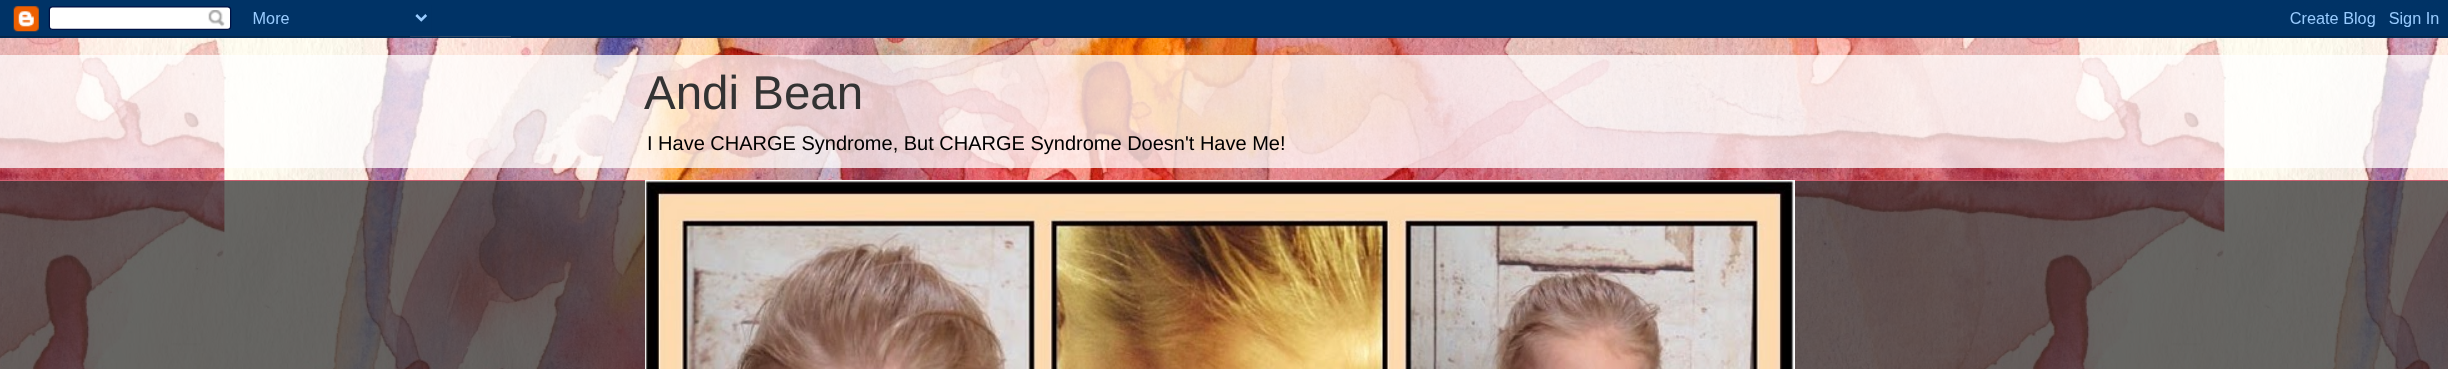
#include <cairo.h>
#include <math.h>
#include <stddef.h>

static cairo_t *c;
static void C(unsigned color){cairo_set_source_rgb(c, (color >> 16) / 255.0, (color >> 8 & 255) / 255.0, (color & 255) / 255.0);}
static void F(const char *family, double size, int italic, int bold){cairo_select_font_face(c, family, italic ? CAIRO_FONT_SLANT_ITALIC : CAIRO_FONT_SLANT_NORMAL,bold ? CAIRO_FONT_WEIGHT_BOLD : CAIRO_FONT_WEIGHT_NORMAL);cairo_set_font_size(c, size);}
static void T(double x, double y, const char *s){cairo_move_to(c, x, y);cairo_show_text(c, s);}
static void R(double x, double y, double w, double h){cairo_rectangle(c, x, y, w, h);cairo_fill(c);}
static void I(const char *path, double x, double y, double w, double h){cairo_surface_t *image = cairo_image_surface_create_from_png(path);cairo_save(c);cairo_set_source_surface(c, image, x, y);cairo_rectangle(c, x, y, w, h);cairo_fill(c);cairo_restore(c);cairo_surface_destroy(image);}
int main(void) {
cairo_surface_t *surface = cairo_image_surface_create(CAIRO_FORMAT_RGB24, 2448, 369);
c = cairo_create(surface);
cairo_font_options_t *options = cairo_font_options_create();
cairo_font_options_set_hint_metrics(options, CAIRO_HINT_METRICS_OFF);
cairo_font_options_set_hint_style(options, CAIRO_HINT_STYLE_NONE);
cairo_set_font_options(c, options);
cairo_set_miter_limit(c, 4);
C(0xffffff);
cairo_paint(c);
I("1.png",0,36,2448,333);
I("2.png",0,0,2448,38);
cairo_set_source_rgba(c,1,1,1,0.75);
R(0,55,2448,113);
F("Liberation Sans",47.5,0,0);
C(0x333333);
T(644,109,"Andi Bean");
F("Liberation Sans",20,0,0);
C(0x000000);
T(647,150,"I Have CHARGE Syndrome, But CHARGE Syndrome Doesn't Have Me!");
cairo_set_source_rgba(c,0.2,0.2,0.2,0.75);
R(0,181,2448,188);
C(0xce5f70);
R(0,180,2448,1);
I("3.png",645,180,1150,189);
cairo_surface_write_to_png(surface, "o.png");
cairo_font_options_destroy(options);
cairo_destroy(c);
cairo_surface_destroy(surface);
return 0;
}
